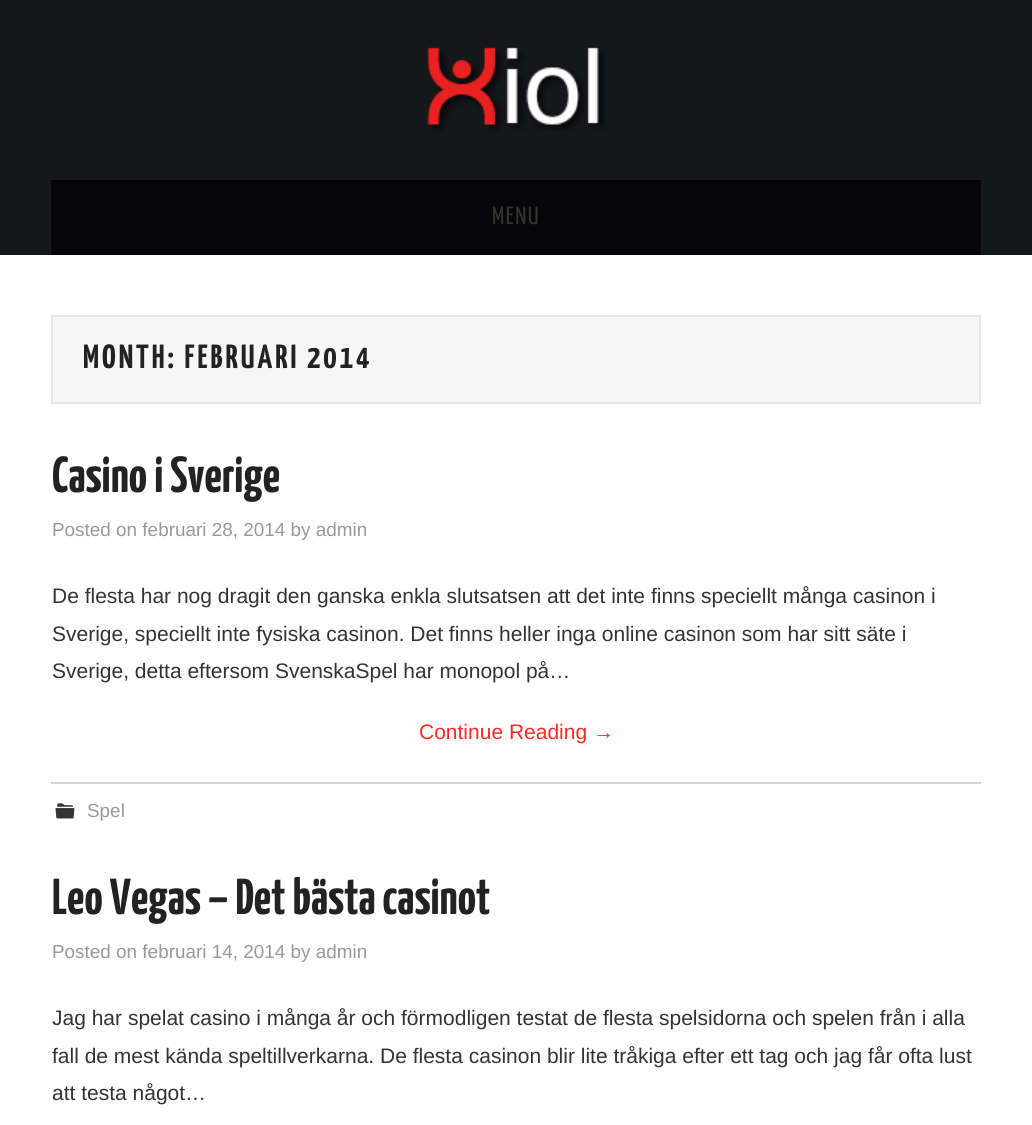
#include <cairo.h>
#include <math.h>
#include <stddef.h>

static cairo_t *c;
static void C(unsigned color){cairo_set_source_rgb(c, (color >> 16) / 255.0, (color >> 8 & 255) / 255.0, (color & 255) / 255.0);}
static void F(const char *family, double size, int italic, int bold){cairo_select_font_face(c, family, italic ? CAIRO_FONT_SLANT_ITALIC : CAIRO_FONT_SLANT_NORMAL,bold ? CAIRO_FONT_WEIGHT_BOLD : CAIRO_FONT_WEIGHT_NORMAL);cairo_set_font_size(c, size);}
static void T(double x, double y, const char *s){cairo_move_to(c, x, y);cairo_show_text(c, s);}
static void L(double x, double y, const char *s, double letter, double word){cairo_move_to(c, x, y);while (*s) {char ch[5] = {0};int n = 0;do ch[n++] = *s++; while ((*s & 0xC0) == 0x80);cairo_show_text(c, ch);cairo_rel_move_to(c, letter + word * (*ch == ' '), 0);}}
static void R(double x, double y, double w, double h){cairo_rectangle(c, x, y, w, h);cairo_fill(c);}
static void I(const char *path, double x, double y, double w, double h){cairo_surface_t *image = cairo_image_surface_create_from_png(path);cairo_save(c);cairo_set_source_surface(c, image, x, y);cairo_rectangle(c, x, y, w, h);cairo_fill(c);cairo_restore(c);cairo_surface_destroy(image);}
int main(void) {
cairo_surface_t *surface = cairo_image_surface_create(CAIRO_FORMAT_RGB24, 1032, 1125);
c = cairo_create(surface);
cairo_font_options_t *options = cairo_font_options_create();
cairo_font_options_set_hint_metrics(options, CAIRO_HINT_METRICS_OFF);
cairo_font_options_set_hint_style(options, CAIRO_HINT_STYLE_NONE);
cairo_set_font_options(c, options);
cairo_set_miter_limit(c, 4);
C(0xffffff);
cairo_paint(c);
C(0x16171b);
R(0,0,1032,255);
I("1.png",427,47,179,85);
C(0x060608);
R(51,180,930,75);
F("Yanone Kaffeesatz",25,0,0);
C(0x333333);
L(492,224,"MENU",1.5,0);
C(0xf6f6f6);
cairo_rectangle(c,52,316,928,87);
cairo_fill_preserve(c);
C(0xe6e6e6);
cairo_stroke(c);
F("Yanone Kaffeesatz",33.5,0,1);
C(0x222222);
L(83,368,"MONTH: FEBRUARI 2014",3,0);
F("Yanone Kaffeesatz",50.5,0,1);
T(52,492,"Casino i Sverige");
F("Liberation Sans",18.9,0,0);
C(0x999999);
T(52,536,"Posted on februari 28, 2014 by admin");
F("Liberation Sans",21,0,0);
C(0x333333);
T(52,603,"De flesta har nog dragit den ganska enkla slutsatsen att det inte finns speciellt många casinon i");
T(52,641,"Sverige, speciellt inte fysiska casinon. Det finns heller inga online casinon som har sitt säte i");
T(52,678,"Sverige, detta eftersom SvenskaSpel har monopol på…");
C(0xff2828);
T(419,739,"Continue Reading →");
C(0xd6d6d6);
R(51,782,930,2);
I("2.png",55,803,20,16);
F("Liberation Sans",18.9,0,0);
C(0x999999);
T(87,817,"Spel");
F("Yanone Kaffeesatz",50.5,0,1);
C(0x222222);
T(52,914,"Leo Vegas – Det bästa casinot");
F("Liberation Sans",18.9,0,0);
C(0x999999);
T(52,958,"Posted on februari 14, 2014 by admin");
F("Liberation Sans",21,0,0);
C(0x333333);
T(52,1025,"Jag har spelat casino i många år och förmodligen testat de flesta spelsidorna och spelen från i alla");
T(52,1063,"fall de mest kända speltillverkarna. De flesta casinon blir lite tråkiga efter ett tag och jag får ofta lust");
T(52,1100,"att testa något…");
cairo_surface_write_to_png(surface, "o.png");
cairo_font_options_destroy(options);
cairo_destroy(c);
cairo_surface_destroy(surface);
return 0;
}
